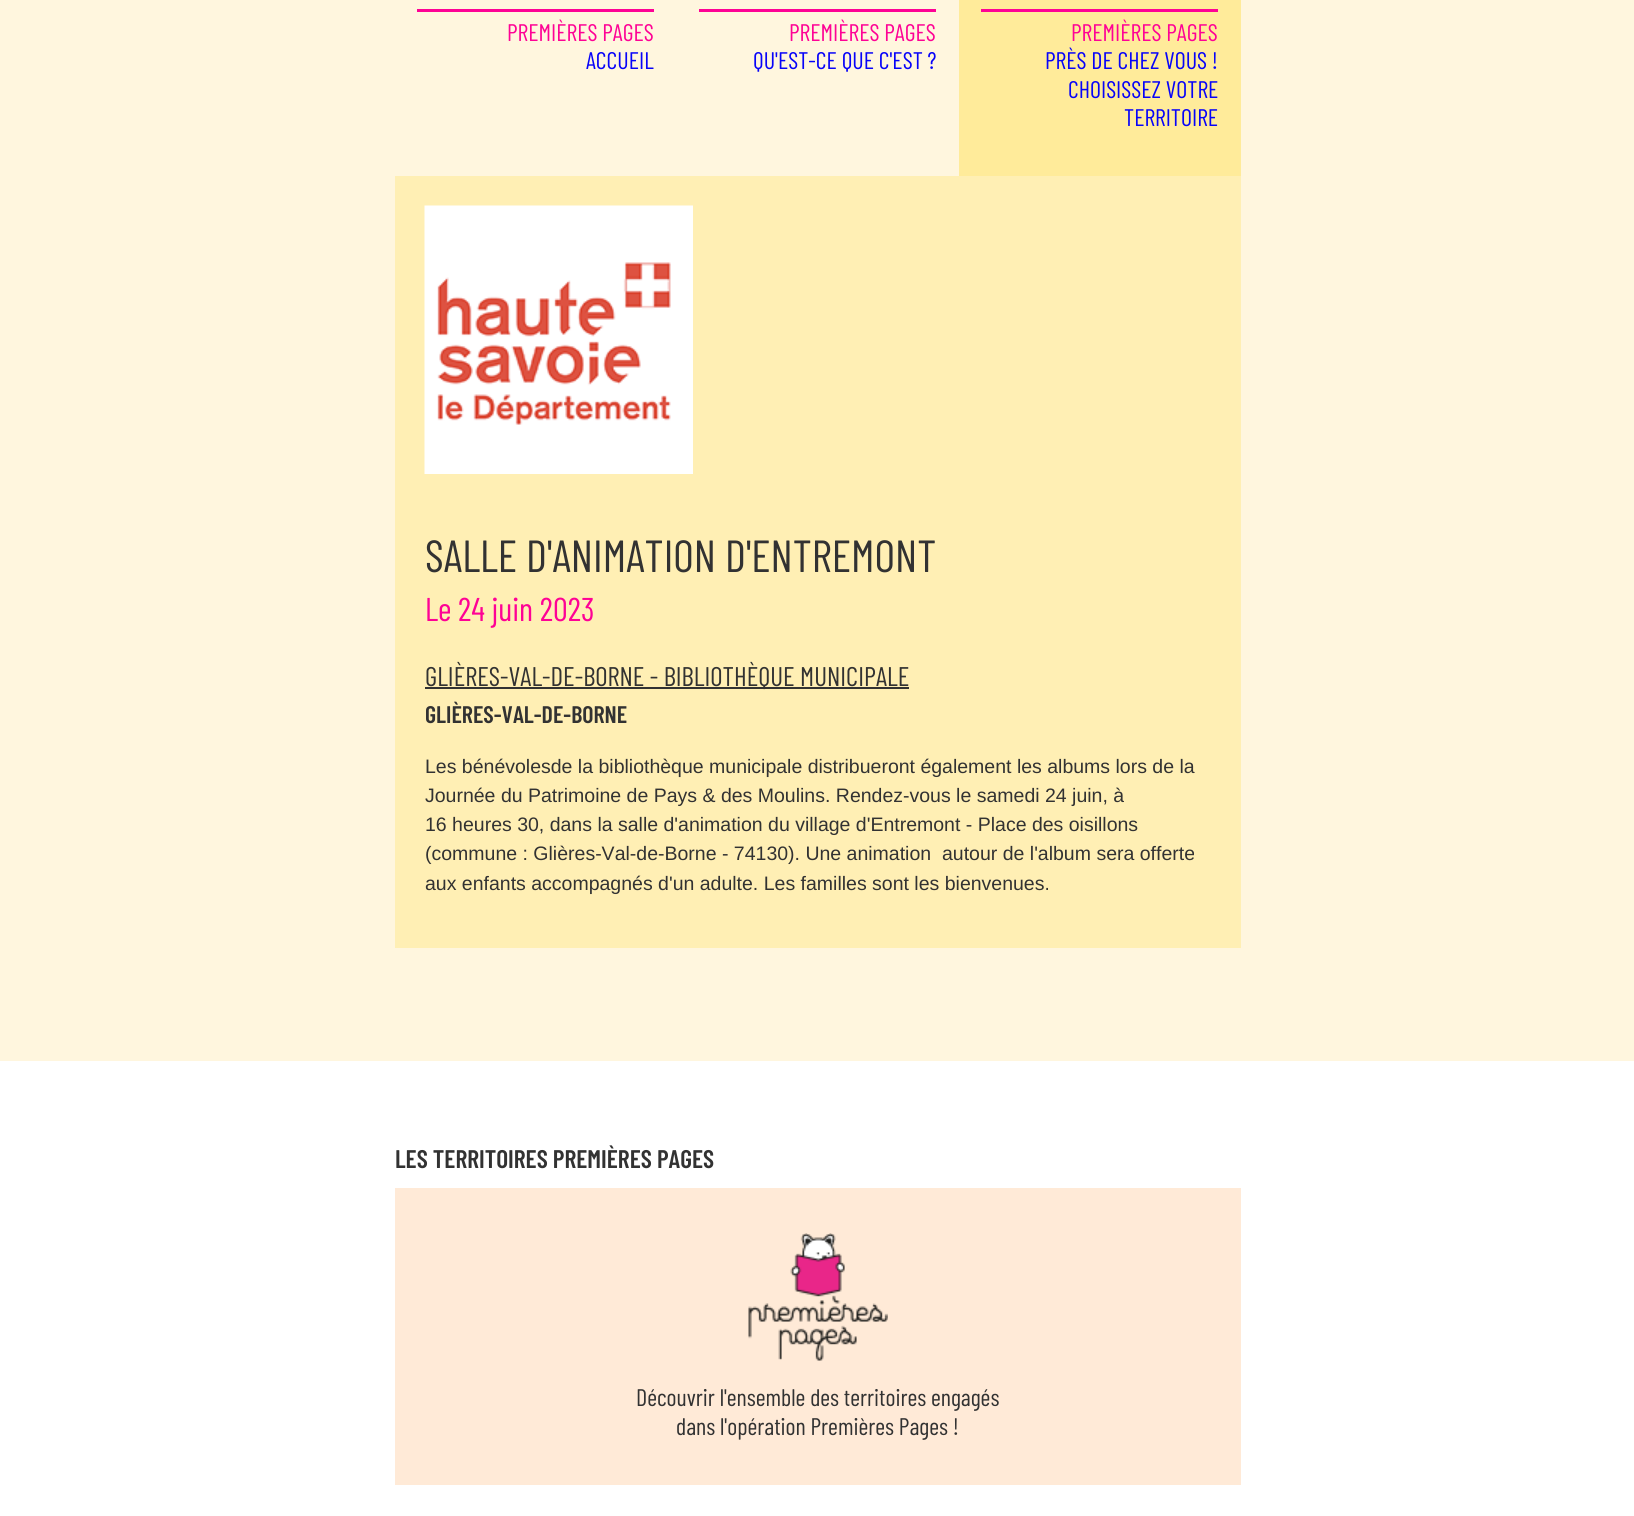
#include <cairo.h>
#include <math.h>
#include <stddef.h>

static cairo_t *c;
static void C(unsigned color){cairo_set_source_rgb(c, (color >> 16) / 255.0, (color >> 8 & 255) / 255.0, (color & 255) / 255.0);}
static void F(const char *family, double size, int italic, int bold){cairo_select_font_face(c, family, italic ? CAIRO_FONT_SLANT_ITALIC : CAIRO_FONT_SLANT_NORMAL,bold ? CAIRO_FONT_WEIGHT_BOLD : CAIRO_FONT_WEIGHT_NORMAL);cairo_set_font_size(c, size);}
static void T(double x, double y, const char *s){cairo_move_to(c, x, y);cairo_show_text(c, s);}
static void R(double x, double y, double w, double h){cairo_rectangle(c, x, y, w, h);cairo_fill(c);}
static void I(const char *path, double x, double y, double w, double h){cairo_surface_t *image = cairo_image_surface_create_from_png(path);cairo_save(c);cairo_set_source_surface(c, image, x, y);cairo_rectangle(c, x, y, w, h);cairo_fill(c);cairo_restore(c);cairo_surface_destroy(image);}
int main(void) {
cairo_surface_t *surface = cairo_image_surface_create(CAIRO_FORMAT_RGB24, 1634, 1516);
c = cairo_create(surface);
cairo_font_options_t *options = cairo_font_options_create();
cairo_font_options_set_hint_metrics(options, CAIRO_HINT_METRICS_OFF);
cairo_font_options_set_hint_style(options, CAIRO_HINT_STYLE_NONE);
cairo_set_font_options(c, options);
cairo_set_miter_limit(c, 4);
C(0xfff6de);
cairo_paint(c);
C(0xfe0295);
R(417,9,237,3);
F("Barlow Condensed",24,0,0);
T(507,41,"PREMIÈRES PAGES");
C(0x0703f9);
T(586,69,"ACCUEIL");
C(0xfe0295);
R(699,9,237,3);
T(789,41,"PREMIÈRES PAGES");
C(0x0703f9);
T(753,69,"QU'EST-CE QUE C'EST ?");
C(0xffeb9a);
R(959,0,282,176);
C(0xfe0295);
R(981,9,237,3);
T(1071,41,"PREMIÈRES PAGES");
C(0x0703f9);
T(1045,69,"PRÈS DE CHEZ VOUS !");
T(1068,98,"CHOISISSEZ VOTRE");
T(1124,126,"TERRITOIRE");
C(0xffefb4);
R(395,176,846,772);
I("1.png",424,205,269,269);
F("Barlow Condensed",45,0,0);
C(0x323232);
T(425,572,"SALLE D'ANIMATION D'ENTREMONT");
F("Barlow Condensed",33,0,0);
C(0xfe0295);
T(425,621,"Le 24 juin 2023");
C(0x323232);
R(425,687,484,2);
F("Barlow Condensed",27,0,0);
T(425,686,"GLIÈRES-VAL-DE-BORNE - BIBLIOTHÈQUE MUNICIPALE");
F("Barlow Condensed SemiBold",24,0,0);
T(425,723,"GLIÈRES-VAL-DE-BORNE");
F("Liberation Sans",19.5,0,0);
T(425,773,"Les bénévolesde la bibliothèque municipale distribueront également les albums lors de la");
T(425,802,"Journée du Patrimoine de Pays & des Moulins. Rendez-vous le samedi 24 juin, à");
T(425,831,"16 heures 30, dans la salle d'animation du village d'Entremont - Place des oisillons");
T(425,860,"(commune : Glières-Val-de-Borne - 74130). Une animation  autour de l'album sera offerte");
T(425,890,"aux enfants accompagnés d'un adulte. Les familles sont les bienvenues.");
C(0xffffff);
R(0,1061,1634,455);
F("Barlow Condensed SemiBold",25.5,0,0);
C(0x323232);
T(395,1168,"LES TERRITOIRES PREMIÈRES PAGES");
C(0xffead7);
R(395,1188,846,297);
I("2.png",748,1233,140,128);
F("Barlow Condensed",24,0,0);
C(0x323232);
T(636,1406,"Découvrir l'ensemble des territoires engagés");
T(676,1435,"dans l'opération Premières Pages !");
cairo_surface_write_to_png(surface, "o.png");
cairo_font_options_destroy(options);
cairo_destroy(c);
cairo_surface_destroy(surface);
return 0;
}
